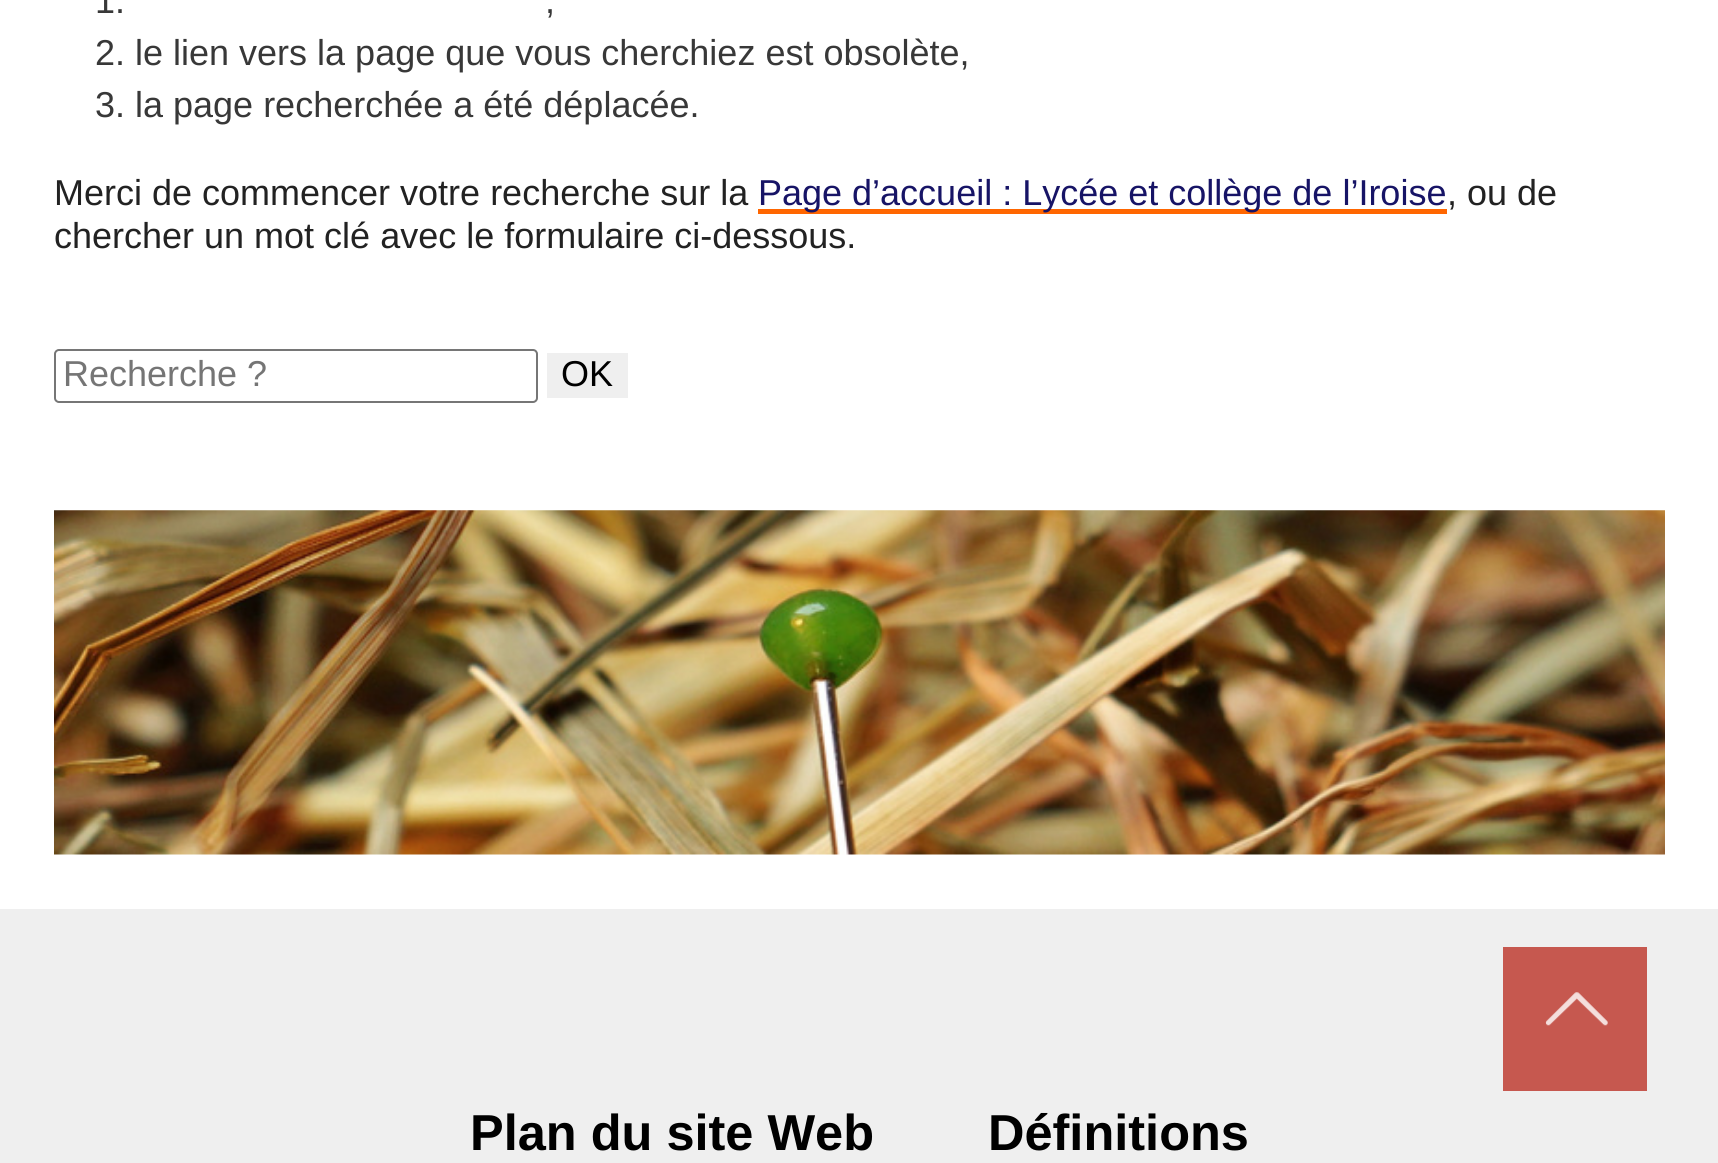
#include <cairo.h>
#include <math.h>
#include <stddef.h>

static cairo_t *c;
static void C(unsigned color){cairo_set_source_rgb(c, (color >> 16) / 255.0, (color >> 8 & 255) / 255.0, (color & 255) / 255.0);}
static void F(const char *family, double size, int italic, int bold){cairo_select_font_face(c, family, italic ? CAIRO_FONT_SLANT_ITALIC : CAIRO_FONT_SLANT_NORMAL,bold ? CAIRO_FONT_WEIGHT_BOLD : CAIRO_FONT_WEIGHT_NORMAL);cairo_set_font_size(c, size);}
static void T(double x, double y, const char *s){cairo_move_to(c, x, y);cairo_show_text(c, s);}
static void R(double x, double y, double w, double h){cairo_rectangle(c, x, y, w, h);cairo_fill(c);}
static void Q(double x, double y, double w, double h, double r){cairo_new_sub_path(c);cairo_arc(c, x + w - r, y + h - r, r, 0, M_PI / 2);cairo_arc(c, x + r, y + h - r, r, M_PI / 2, M_PI);cairo_arc(c, x + r, y + r, r, M_PI, 1.5 * M_PI);cairo_arc(c, x + w - r, y + r, r, 1.5 * M_PI, 2 * M_PI);cairo_close_path(c);}
static void I(const char *path, double x, double y, double w, double h){cairo_surface_t *image = cairo_image_surface_create_from_png(path);cairo_save(c);cairo_set_source_surface(c, image, x, y);cairo_rectangle(c, x, y, w, h);cairo_fill(c);cairo_restore(c);cairo_surface_destroy(image);}
int main(void) {
cairo_surface_t *surface = cairo_image_surface_create(CAIRO_FORMAT_RGB24, 1718, 1163);
c = cairo_create(surface);
cairo_font_options_t *options = cairo_font_options_create();
cairo_font_options_set_hint_metrics(options, CAIRO_HINT_METRICS_OFF);
cairo_font_options_set_hint_style(options, CAIRO_HINT_STYLE_NONE);
cairo_set_font_options(c, options);
cairo_set_miter_limit(c, 4);
C(0xffffff);
cairo_paint(c);
F("Liberation Sans",36,0,0);
C(0x383838);
T(95,13,"1.");
T(545,13,",");
T(95,65,"2. le lien vers la page que vous cherchiez est obsolète,");
T(95,117,"3. la page recherchée a été déplacée.");
C(0x222222);
T(54,205,"Merci de commencer votre recherche sur la");
C(0xff6600);
R(758,209,689,5);
C(0x171466);
T(758,205,"Page d’accueil : Lycée et collège de l’Iroise");
C(0x222222);
T(1447,205,", ou de");
T(54,248,"chercher un mot clé avec le formulaire ci-dessous.");
Q(55,350,482,52,4);
C(0x767676);
cairo_stroke(c);
C(0x757575);
T(63,386,"Recherche ?");
C(0xefefef);
R(547,353,81,45);
C(0x000000);
T(561,386,"OK");
I("1.png",54,510,1611,345);
C(0xefefef);
R(0,909,1718,254);
F("Liberation Sans",50.5,0,1);
C(0x000000);
T(470,1150,"Plan du site Web");
T(988,1150,"Définitions");
C(0xc6584f);
R(1503,947,144,144);
I("2.png",1545,992,63,34);
cairo_surface_write_to_png(surface, "o.png");
cairo_font_options_destroy(options);
cairo_destroy(c);
cairo_surface_destroy(surface);
return 0;
}
